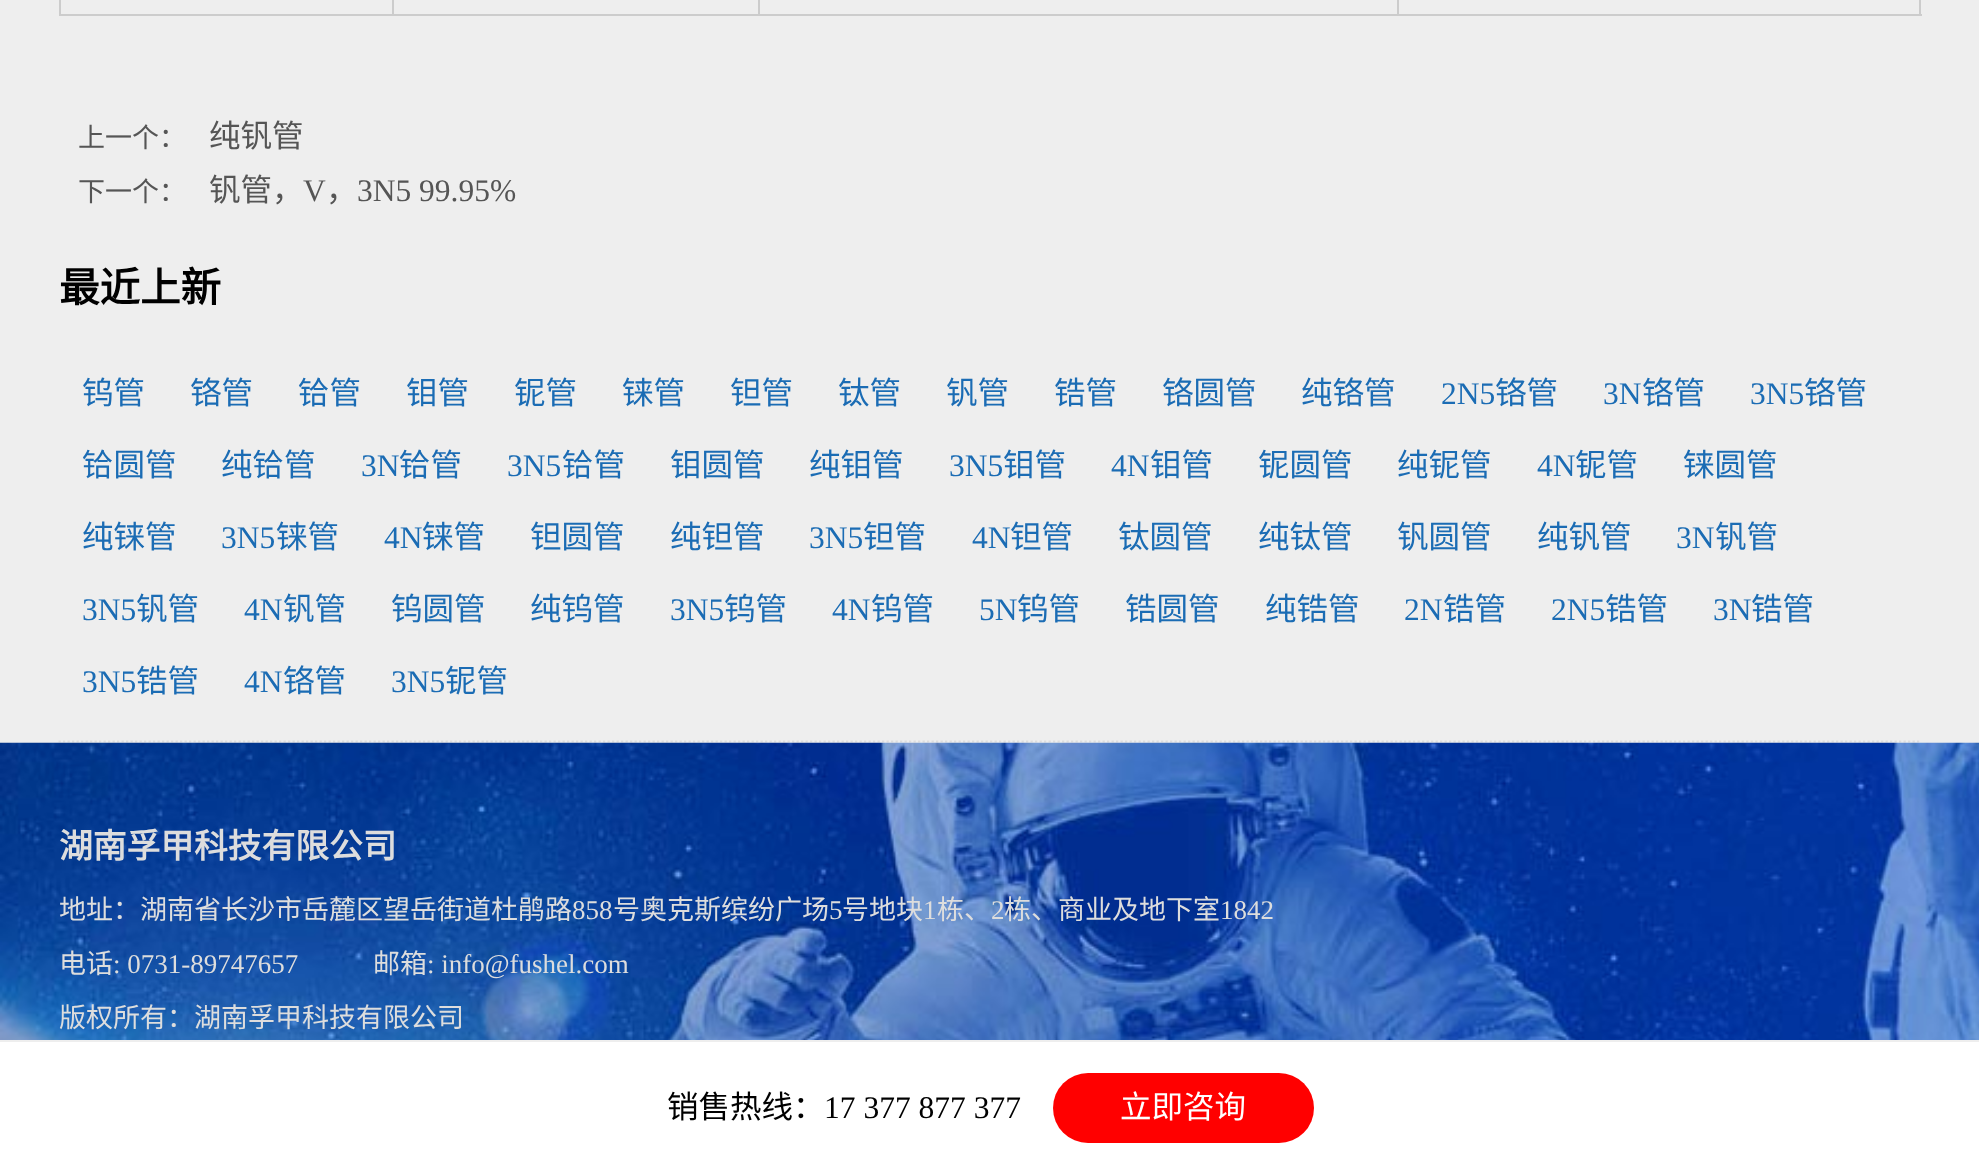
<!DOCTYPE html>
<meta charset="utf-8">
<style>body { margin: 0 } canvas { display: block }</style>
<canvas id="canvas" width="1979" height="1175"></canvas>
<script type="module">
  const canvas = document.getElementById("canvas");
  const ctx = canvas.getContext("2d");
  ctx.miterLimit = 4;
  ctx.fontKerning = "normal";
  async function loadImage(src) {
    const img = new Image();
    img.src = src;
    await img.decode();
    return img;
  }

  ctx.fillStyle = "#eeeeee";
  ctx.fillRect(0, 0, 1979, 1175);
  ctx.fillStyle = "#cccccc";
  ctx.fillRect(1919, 0, 2, 16);
  ctx.fillRect(1397, 14, 525, 2);
  ctx.fillRect(1397, 0, 2, 16);
  ctx.fillRect(758, 14, 642, 2);
  ctx.fillRect(758, 0, 2, 16);
  ctx.fillRect(392, 14, 369, 2);
  ctx.fillRect(392, 0, 2, 16);
  ctx.fillRect(59, 14, 335, 2);
  ctx.fillRect(59, 0, 2, 16);
  ctx.font = "27px Noto Sans CJK SC";
  ctx.fillStyle = "#555555";
  ctx.fillText("上一个：", 78, 147);
  ctx.font = "31.5px Noto Sans CJK SC";
  ctx.fillText("纯钒管", 209, 147);
  ctx.font = "27px Noto Sans CJK SC";
  ctx.fillText("下一个：", 78, 201);
  ctx.font = "31.5px Noto Sans CJK SC";
  ctx.fillText("钒管，", 209, 201);
  ctx.font = "31.5px Liberation Serif";
  ctx.fillText("V", 303, 201);
  ctx.font = "31.5px Noto Sans CJK SC";
  ctx.fillText("，", 326, 201);
  ctx.font = "31.5px Liberation Serif";
  ctx.fillText("3N5 99.95%", 357, 201);
  ctx.font = "bold 40.5px Noto Sans CJK SC";
  ctx.fillStyle = "#000000";
  ctx.fillText("最近上新", 59, 302);
  ctx.beginPath();
  ctx.moveTo(58.5, 741.5);
  ctx.lineTo(1921.5, 741.5);
  ctx.strokeStyle = "#dddddd";
  ctx.lineWidth = 2.2;
  ctx.setLineDash([2.25, 2.25]);
  ctx.stroke();
  ctx.font = "31.5px Noto Sans CJK SC";
  ctx.fillStyle = "#1b6cb4";
  ctx.fillText("钨管", 82, 404);
  ctx.fillText("铬管", 190, 404);
  ctx.fillText("铪管", 298, 404);
  ctx.fillText("钼管", 406, 404);
  ctx.fillText("铌管", 514, 404);
  ctx.fillText("铼管", 622, 404);
  ctx.fillText("钽管", 730, 404);
  ctx.fillText("钛管", 838, 404);
  ctx.fillText("钒管", 946, 404);
  ctx.fillText("锆管", 1054, 404);
  ctx.fillText("铬圆管", 1162, 404);
  ctx.fillText("纯铬管", 1301, 404);
  ctx.font = "31.5px Liberation Serif";
  ctx.fillText("2N5", 1441, 404);
  ctx.font = "31.5px Noto Sans CJK SC";
  ctx.fillText("铬管", 1495, 404);
  ctx.font = "31.5px Liberation Serif";
  ctx.fillText("3N", 1603, 404);
  ctx.font = "31.5px Noto Sans CJK SC";
  ctx.fillText("铬管", 1642, 404);
  ctx.font = "31.5px Liberation Serif";
  ctx.fillText("3N5", 1750, 404);
  ctx.font = "31.5px Noto Sans CJK SC";
  ctx.fillText("铬管", 1804, 404);
  ctx.fillText("铪圆管", 82, 476);
  ctx.fillText("纯铪管", 221, 476);
  ctx.font = "31.5px Liberation Serif";
  ctx.fillText("3N", 361, 476);
  ctx.font = "31.5px Noto Sans CJK SC";
  ctx.fillText("铪管", 399, 476);
  ctx.font = "31.5px Liberation Serif";
  ctx.fillText("3N5", 507, 476);
  ctx.font = "31.5px Noto Sans CJK SC";
  ctx.fillText("铪管", 562, 476);
  ctx.fillText("钼圆管", 670, 476);
  ctx.fillText("纯钼管", 809, 476);
  ctx.font = "31.5px Liberation Serif";
  ctx.fillText("3N5", 949, 476);
  ctx.font = "31.5px Noto Sans CJK SC";
  ctx.fillText("钼管", 1003, 476);
  ctx.font = "31.5px Liberation Serif";
  ctx.fillText("4N", 1111, 476);
  ctx.font = "31.5px Noto Sans CJK SC";
  ctx.fillText("钼管", 1150, 476);
  ctx.fillText("铌圆管", 1258, 476);
  ctx.fillText("纯铌管", 1397, 476);
  ctx.font = "31.5px Liberation Serif";
  ctx.fillText("4N", 1537, 476);
  ctx.font = "31.5px Noto Sans CJK SC";
  ctx.fillText("铌管", 1575, 476);
  ctx.fillText("铼圆管", 1683, 476);
  ctx.fillText("纯铼管", 82, 548);
  ctx.font = "31.5px Liberation Serif";
  ctx.fillText("3N5", 221, 548);
  ctx.font = "31.5px Noto Sans CJK SC";
  ctx.fillText("铼管", 276, 548);
  ctx.font = "31.5px Liberation Serif";
  ctx.fillText("4N", 384, 548);
  ctx.font = "31.5px Noto Sans CJK SC";
  ctx.fillText("铼管", 422, 548);
  ctx.fillText("钽圆管", 530, 548);
  ctx.fillText("纯钽管", 670, 548);
  ctx.font = "31.5px Liberation Serif";
  ctx.fillText("3N5", 809, 548);
  ctx.font = "31.5px Noto Sans CJK SC";
  ctx.fillText("钽管", 863, 548);
  ctx.font = "31.5px Liberation Serif";
  ctx.fillText("4N", 972, 548);
  ctx.font = "31.5px Noto Sans CJK SC";
  ctx.fillText("钽管", 1010, 548);
  ctx.fillText("钛圆管", 1118, 548);
  ctx.fillText("纯钛管", 1258, 548);
  ctx.fillText("钒圆管", 1397, 548);
  ctx.fillText("纯钒管", 1537, 548);
  ctx.font = "31.5px Liberation Serif";
  ctx.fillText("3N", 1676, 548);
  ctx.font = "31.5px Noto Sans CJK SC";
  ctx.fillText("钒管", 1715, 548);
  ctx.font = "31.5px Liberation Serif";
  ctx.fillText("3N5", 82, 620);
  ctx.font = "31.5px Noto Sans CJK SC";
  ctx.fillText("钒管", 136, 620);
  ctx.font = "31.5px Liberation Serif";
  ctx.fillText("4N", 244, 620);
  ctx.font = "31.5px Noto Sans CJK SC";
  ctx.fillText("钒管", 283, 620);
  ctx.fillText("钨圆管", 391, 620);
  ctx.fillText("纯钨管", 530, 620);
  ctx.font = "31.5px Liberation Serif";
  ctx.fillText("3N5", 670, 620);
  ctx.font = "31.5px Noto Sans CJK SC";
  ctx.fillText("钨管", 724, 620);
  ctx.font = "31.5px Liberation Serif";
  ctx.fillText("4N", 832, 620);
  ctx.font = "31.5px Noto Sans CJK SC";
  ctx.fillText("钨管", 871, 620);
  ctx.font = "31.5px Liberation Serif";
  ctx.fillText("5N", 979, 620);
  ctx.font = "31.5px Noto Sans CJK SC";
  ctx.fillText("钨管", 1017, 620);
  ctx.fillText("锆圆管", 1125, 620);
  ctx.fillText("纯锆管", 1265, 620);
  ctx.font = "31.5px Liberation Serif";
  ctx.fillText("2N", 1404, 620);
  ctx.font = "31.5px Noto Sans CJK SC";
  ctx.fillText("锆管", 1443, 620);
  ctx.font = "31.5px Liberation Serif";
  ctx.fillText("2N5", 1551, 620);
  ctx.font = "31.5px Noto Sans CJK SC";
  ctx.fillText("锆管", 1605, 620);
  ctx.font = "31.5px Liberation Serif";
  ctx.fillText("3N", 1713, 620);
  ctx.font = "31.5px Noto Sans CJK SC";
  ctx.fillText("锆管", 1751, 620);
  ctx.font = "31.5px Liberation Serif";
  ctx.fillText("3N5", 82, 692);
  ctx.font = "31.5px Noto Sans CJK SC";
  ctx.fillText("锆管", 136, 692);
  ctx.font = "31.5px Liberation Serif";
  ctx.fillText("4N", 244, 692);
  ctx.font = "31.5px Noto Sans CJK SC";
  ctx.fillText("铬管", 283, 692);
  ctx.font = "31.5px Liberation Serif";
  ctx.fillText("3N5", 391, 692);
  ctx.font = "31.5px Noto Sans CJK SC";
  ctx.fillText("铌管", 445, 692);
  ctx.drawImage(await loadImage("img1.png"), 0, 742, 1979, 298);
  ctx.font = "bold 33.75px Noto Sans CJK SC";
  ctx.fillStyle = "#dddddd";
  ctx.fillText("湖南孚甲科技有限公司", 59, 858);
  ctx.font = "27px Noto Sans CJK SC";
  ctx.fillText("地址：湖南省长沙市岳麓区望岳街道杜鹃路", 59, 919);
  ctx.font = "27px Liberation Serif";
  ctx.fillText("858", 572, 919);
  ctx.font = "27px Noto Sans CJK SC";
  ctx.fillText("号奥克斯缤纷广场", 613, 919);
  ctx.font = "27px Liberation Serif";
  ctx.fillText("5", 829, 919);
  ctx.font = "27px Noto Sans CJK SC";
  ctx.fillText("号地块", 842, 919);
  ctx.font = "27px Liberation Serif";
  ctx.fillText("1", 923, 919);
  ctx.font = "27px Noto Sans CJK SC";
  ctx.fillText("栋、", 937, 919);
  ctx.font = "27px Liberation Serif";
  ctx.fillText("2", 991, 919);
  ctx.font = "27px Noto Sans CJK SC";
  ctx.fillText("栋、商业及地下室", 1004, 919);
  ctx.font = "27px Liberation Serif";
  ctx.fillText("1842", 1220, 919);
  ctx.font = "27px Noto Sans CJK SC";
  ctx.fillText("电话", 59, 973);
  ctx.font = "27px Liberation Serif";
  ctx.fillText(": 0731-89747657", 113, 973);
  ctx.font = "27px Noto Sans CJK SC";
  ctx.fillText("邮箱", 373, 973);
  ctx.font = "27px Liberation Serif";
  ctx.fillText(": info@fushel.com", 427, 973);
  ctx.font = "27px Noto Sans CJK SC";
  ctx.fillText("版权所有：湖南孚甲科技有限公司", 59, 1027);
  ctx.fillStyle = "#ffffff";
  ctx.fillRect(0, 1042, 1979, 133);
  ctx.font = "31.5px Noto Sans CJK SC";
  ctx.fillStyle = "#000000";
  ctx.fillText("销售热线：", 667, 1118);
  ctx.font = "31.5px Liberation Serif";
  ctx.fillText("17 377 877 377", 824, 1118);
  ctx.fillStyle = "#ff0000";
  ctx.beginPath();
  ctx.roundRect(1053, 1073, 261, 70, 35);
  ctx.fill();
  ctx.font = "31.5px Noto Sans CJK SC";
  ctx.fillStyle = "#ffffff";
  ctx.fillText("立即咨询", 1120, 1118);
</script>
